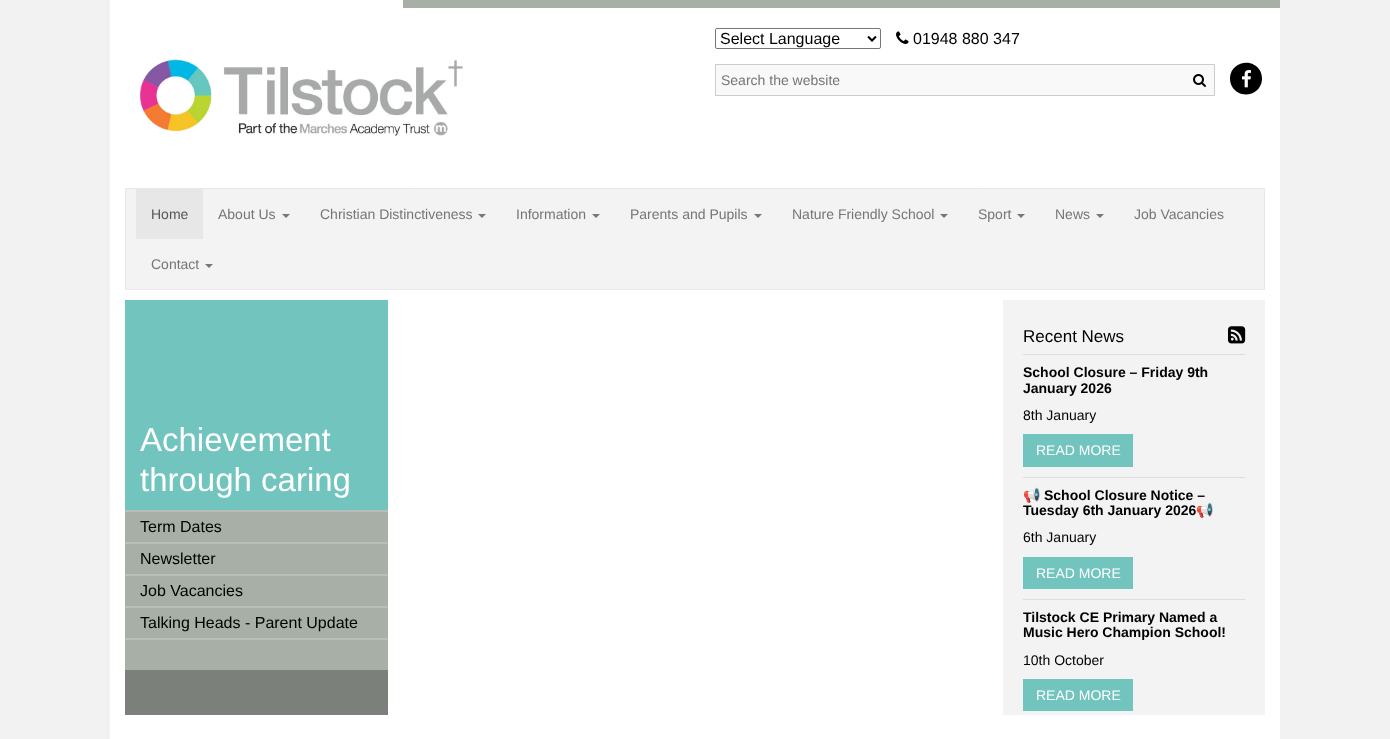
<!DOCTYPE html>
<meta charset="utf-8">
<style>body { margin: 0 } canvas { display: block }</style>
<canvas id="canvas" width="1390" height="739"></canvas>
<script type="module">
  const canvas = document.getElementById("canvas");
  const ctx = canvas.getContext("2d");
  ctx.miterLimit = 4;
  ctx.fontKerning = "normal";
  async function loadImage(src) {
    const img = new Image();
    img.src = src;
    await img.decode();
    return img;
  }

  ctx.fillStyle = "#f2f2f2";
  ctx.fillRect(0, 0, 1390, 739);
  ctx.fillStyle = "#ffffff";
  ctx.fillRect(110, 0, 1170, 739);
  ctx.drawImage(await loadImage("img1.png"), 137, 57, 326, 79);
  ctx.fillStyle = "#a7afa6";
  ctx.fillRect(403, 0, 877, 8);
  ctx.beginPath();
  ctx.roundRect(715.5, 28.5, 165, 20, 1.5);
  ctx.strokeStyle = "#767676";
  ctx.stroke();
  ctx.beginPath();
  ctx.moveTo(868, 36.5);
  ctx.lineTo(872, 40.5);
  ctx.lineTo(876, 36.5);
  ctx.strokeStyle = "#000000";
  ctx.lineWidth = 2;
  ctx.stroke();
  ctx.font = "16px Liberation Sans";
  ctx.fillStyle = "#000000";
  ctx.fillText("Select Language", 720, 44);
  ctx.drawImage(await loadImage("img2.png"), 896, 31, 13, 13);
  ctx.fillText("01948 880 347", 913, 44);
  ctx.fillStyle = "#f9f9f9";
  ctx.beginPath();
  ctx.rect(715.5, 64.5, 499, 31);
  ctx.fill();
  ctx.strokeStyle = "#cccccc";
  ctx.lineWidth = 1;
  ctx.stroke();
  ctx.font = "14px Liberation Sans";
  ctx.fillStyle = "#757575";
  ctx.fillText("Search the website", 721, 85);
  ctx.drawImage(await loadImage("img3.png"), 1193, 74, 13, 13);
  ctx.fillStyle = "#000000";
  ctx.beginPath();
  ctx.moveTo(1232, 86.5);
  ctx.bezierCurveTo(1230.5, 84, 1230, 81, 1230, 77.5);
  ctx.bezierCurveTo(1231, 62, 1252, 57, 1260, 70.5);
  ctx.bezierCurveTo(1261.5, 73.5, 1262, 76.5, 1262, 79.5);
  ctx.bezierCurveTo(1261, 95.5, 1240, 100, 1232, 86.5);
  ctx.closePath();
  ctx.fill();
  ctx.drawImage(await loadImage("img4.png"), 1242, 70, 9, 18);
  ctx.fillStyle = "#f2f3f2";
  ctx.beginPath();
  ctx.rect(125.5, 188.5, 1139, 101);
  ctx.fill();
  ctx.strokeStyle = "#e7e7e7";
  ctx.stroke();
  ctx.fillStyle = "#e7e7e7";
  ctx.fillRect(136, 189, 67, 50);
  ctx.fillStyle = "#555555";
  ctx.fillText("Home", 151, 219);
  ctx.fillStyle = "#757575";
  ctx.fillText("About Us", 218, 219);
  ctx.fillStyle = "#777777";
  ctx.beginPath();
  ctx.moveTo(282, 214);
  ctx.lineTo(290, 214);
  ctx.lineTo(286, 218);
  ctx.closePath();
  ctx.fill();
  ctx.fillStyle = "#757575";
  ctx.fillText("Christian Distinctiveness", 320, 219);
  ctx.fillStyle = "#777777";
  ctx.beginPath();
  ctx.moveTo(478, 214);
  ctx.lineTo(486, 214);
  ctx.lineTo(482, 218);
  ctx.closePath();
  ctx.fill();
  ctx.fillStyle = "#757575";
  ctx.fillText("Information", 516, 219);
  ctx.fillStyle = "#777777";
  ctx.beginPath();
  ctx.moveTo(592, 214);
  ctx.lineTo(600, 214);
  ctx.lineTo(596, 218);
  ctx.closePath();
  ctx.fill();
  ctx.fillStyle = "#757575";
  ctx.fillText("Parents and Pupils", 630, 219);
  ctx.fillStyle = "#777777";
  ctx.beginPath();
  ctx.moveTo(754, 214);
  ctx.lineTo(762, 214);
  ctx.lineTo(758, 218);
  ctx.closePath();
  ctx.fill();
  ctx.fillStyle = "#757575";
  ctx.fillText("Nature Friendly School", 792, 219);
  ctx.fillStyle = "#777777";
  ctx.beginPath();
  ctx.moveTo(940, 214);
  ctx.lineTo(948, 214);
  ctx.lineTo(944, 218);
  ctx.closePath();
  ctx.fill();
  ctx.fillStyle = "#757575";
  ctx.fillText("Sport", 978, 219);
  ctx.fillStyle = "#777777";
  ctx.beginPath();
  ctx.moveTo(1017, 214);
  ctx.lineTo(1025, 214);
  ctx.lineTo(1021, 218);
  ctx.closePath();
  ctx.fill();
  ctx.fillStyle = "#757575";
  ctx.fillText("News", 1055, 219);
  ctx.fillStyle = "#777777";
  ctx.beginPath();
  ctx.moveTo(1096, 214);
  ctx.lineTo(1104, 214);
  ctx.lineTo(1100, 218);
  ctx.closePath();
  ctx.fill();
  ctx.fillStyle = "#757575";
  ctx.fillText("Job Vacancies", 1134, 219);
  ctx.fillText("Contact", 151, 269);
  ctx.fillStyle = "#777777";
  ctx.beginPath();
  ctx.moveTo(205, 264);
  ctx.lineTo(213, 264);
  ctx.lineTo(209, 268);
  ctx.closePath();
  ctx.fill();
  ctx.fillStyle = "#7b817a";
  ctx.fillRect(125, 670, 263, 45);
  ctx.fillStyle = "#72c4bf";
  ctx.fillRect(125, 300, 263, 210);
  ctx.font = "33px Liberation Sans";
  ctx.fillStyle = "#ffffff";
  ctx.fillText("Achievement", 140, 451);
  ctx.fillText("through caring", 140, 491);
  ctx.fillStyle = "#a7afa6";
  ctx.fillRect(125, 512, 263, 158);
  ctx.fillStyle = "#b9bfb8";
  ctx.fillRect(125, 510, 263, 2);
  ctx.fillRect(125, 542, 263, 2);
  ctx.font = "16px Liberation Sans";
  ctx.fillStyle = "#000000";
  ctx.fillText("Term Dates", 140, 532);
  ctx.fillStyle = "#b9bfb8";
  ctx.fillRect(125, 574, 263, 2);
  ctx.fillStyle = "#000000";
  ctx.fillText("Newsletter", 140, 564);
  ctx.fillStyle = "#b9bfb8";
  ctx.fillRect(125, 606, 263, 2);
  ctx.fillStyle = "#000000";
  ctx.fillText("Job Vacancies", 140, 596);
  ctx.fillStyle = "#b9bfb8";
  ctx.fillRect(125, 638, 263, 2);
  ctx.fillStyle = "#000000";
  ctx.fillText("Talking Heads - Parent Update", 140, 628);
  ctx.fillStyle = "#f2f3f2";
  ctx.fillRect(1003, 300, 262, 415);
  ctx.fillStyle = "#dddddd";
  ctx.fillRect(1023, 354, 222, 1);
  ctx.font = "17px Liberation Sans";
  ctx.fillStyle = "#000000";
  ctx.fillText("Recent News", 1023, 342);
  ctx.drawImage(await loadImage("img5.png"), 1228, 326, 18, 18);
  ctx.fillStyle = "#dddddd";
  ctx.fillRect(1023, 477, 222, 1);
  ctx.font = "bold 14px Liberation Sans";
  ctx.fillStyle = "#000000";
  ctx.fillText("School Closure – Friday 9th", 1023, 377);
  ctx.fillText("January 2026", 1023, 393);
  ctx.font = "14px Liberation Sans";
  ctx.fillText("8th January", 1023, 420);
  ctx.fillStyle = "#72c4bf";
  ctx.fillRect(1023, 434, 110, 33);
  ctx.fillStyle = "#ffffff";
  ctx.fillText("READ MORE", 1036, 455);
  ctx.fillStyle = "#dddddd";
  ctx.fillRect(1023, 599, 222, 1);
  ctx.font = "bold 14px Noto Color Emoji";
  ctx.fillStyle = "#000000";
  ctx.fillText("📢", 1023, 500);
  ctx.font = "bold 14px Liberation Sans";
  ctx.fillText("School Closure Notice –", 1044, 500);
  ctx.fillText("Tuesday 6th January 2026", 1023, 515);
  ctx.font = "bold 14px Noto Color Emoji";
  ctx.fillText("📢", 1196, 515);
  ctx.font = "14px Liberation Sans";
  ctx.fillText("6th January", 1023, 542);
  ctx.fillStyle = "#72c4bf";
  ctx.fillRect(1023, 557, 110, 32);
  ctx.fillStyle = "#ffffff";
  ctx.fillText("READ MORE", 1036, 578);
  ctx.font = "bold 14px Liberation Sans";
  ctx.fillStyle = "#000000";
  ctx.fillText("Tilstock CE Primary Named a", 1023, 622);
  ctx.fillText("Music Hero Champion School!", 1023, 637);
  ctx.font = "14px Liberation Sans";
  ctx.fillText("10th October", 1023, 665);
  ctx.fillStyle = "#72c4bf";
  ctx.fillRect(1023, 679, 110, 32);
  ctx.fillStyle = "#ffffff";
  ctx.fillText("READ MORE", 1036, 700);
</script>
